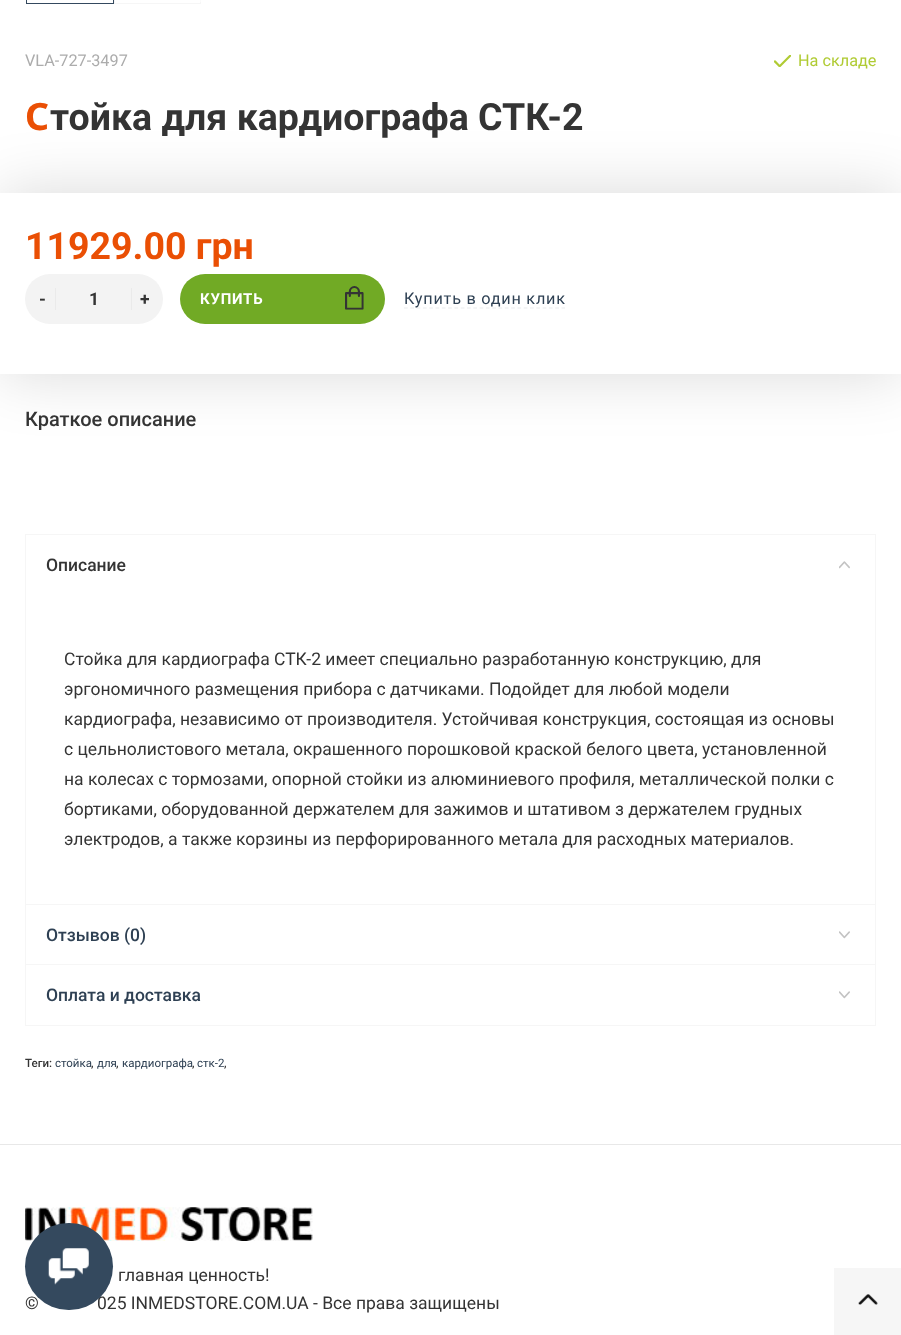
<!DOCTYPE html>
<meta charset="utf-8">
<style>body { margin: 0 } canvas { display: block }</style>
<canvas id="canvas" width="901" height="1335"></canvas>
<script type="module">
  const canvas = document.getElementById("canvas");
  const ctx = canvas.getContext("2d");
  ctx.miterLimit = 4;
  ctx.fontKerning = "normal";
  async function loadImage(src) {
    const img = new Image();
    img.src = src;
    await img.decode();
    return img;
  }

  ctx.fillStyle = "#ffffff";
  ctx.fillRect(0, 0, 901, 1335);
  ctx.strokeStyle = "#34495e";
  ctx.strokeRect(26.5, -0.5, 87, 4);
  ctx.strokeStyle = "#f6f6f6";
  ctx.strokeRect(114.5, -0.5, 86, 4);
  ctx.fillStyle = "#fbfbfb";
  ctx.fillRect(200, 0, 1, 2);
  ctx.font = "16.25px Roboto";
  ctx.fillStyle = "#acacac";
  ctx.fillText("VLA-727-3497", 25, 66);
  ctx.save();
  ctx.beginPath();
  ctx.moveTo(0, 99);
  ctx.lineTo(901, 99);
  ctx.lineTo(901, 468);
  ctx.lineTo(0, 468);
  ctx.closePath();
  ctx.moveTo(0, 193);
  ctx.lineTo(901, 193);
  ctx.lineTo(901, 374);
  ctx.lineTo(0, 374);
  ctx.closePath();
  ctx.clip("evenodd");
  ctx.fillStyle = "rgba(0, 0, 0, 0.15)";
  ctx.filter = "blur(31px)";
  ctx.beginPath();
  ctx.rect(0, 193, 901, 181);
  ctx.fill();
  ctx.filter = "none";
  ctx.restore();
  ctx.font = "bold 37.5px Noto Sans";
  ctx.fillStyle = "#ea4f04";
  ctx.fillText("С", 25, 130);
  ctx.font = "bold 37.5px Roboto";
  ctx.fillStyle = "#343434";
  ctx.fillText("тойка для кардиографа СТК-2", 50, 130);
  ctx.drawImage(await loadImage("img1.png"), 774, 55, 17, 12);
  ctx.font = "16.25px Roboto";
  ctx.fillStyle = "#b0cb34";
  ctx.fillText("На складе", 798, 66);
  ctx.font = "bold 37.5px Roboto";
  ctx.fillStyle = "#ea4f04";
  ctx.fillText("11929.00 грн", 25, 259);
  ctx.fillStyle = "#f3f3f3";
  ctx.beginPath();
  ctx.roundRect(25, 274, 138, 50, 25);
  ctx.fill();
  ctx.fillStyle = "#eaeaea";
  ctx.fillRect(55, 288, 1, 22);
  ctx.font = "bold 17.5px Roboto";
  ctx.fillStyle = "#343434";
  ctx.fillText("-", 39, 305);
  ctx.fillText("1", 89, 305);
  ctx.fillStyle = "#eaeaea";
  ctx.fillRect(131, 288, 1, 22);
  ctx.fillStyle = "#343434";
  ctx.fillText("+", 140, 305);
  ctx.fillStyle = "#71aa25";
  ctx.beginPath();
  ctx.roundRect(180, 274, 205, 50, 25);
  ctx.fill();
  ctx.letterSpacing = "0.75px";
  ctx.font = "bold 15px Roboto";
  ctx.fillStyle = "#ffffff";
  ctx.fillText("КУПИТЬ", 200, 304);
  ctx.drawImage(await loadImage("img2.png"), 345, 286, 19, 24);
  ctx.beginPath();
  ctx.moveTo(404, 308);
  ctx.lineTo(565, 308);
  ctx.strokeStyle = "#eaecee";
  ctx.lineWidth = 1.2;
  ctx.setLineDash([3.75, 2.55]);
  ctx.stroke();
  ctx.font = "16.25px Roboto";
  ctx.fillStyle = "#2e4053";
  ctx.fillText("Купить в один клик", 404, 304);
  ctx.letterSpacing = "0px";
  ctx.font = "500 20px Roboto";
  ctx.fillStyle = "#343434";
  ctx.fillText("Краткое описание", 25, 426);
  ctx.strokeStyle = "#f6f6f6";
  ctx.lineWidth = 1;
  ctx.setLineDash([]);
  ctx.strokeRect(25.5, 534.5, 850, 491);
  ctx.font = "500 17.5px Roboto";
  ctx.fillText("Описание", 46, 571);
  ctx.drawImage(await loadImage("img3.png"), 839, 561, 11, 8);
  ctx.font = "17.5px Roboto";
  ctx.fillText("Стойка для кардиографа СТК-2 имеет специально разработанную конструкцию, для", 64, 665);
  ctx.fillText("эргономичного размещения прибора с датчиками. Подойдет для любой модели", 64, 695);
  ctx.fillText("кардиографа, независимо от производителя. Устойчивая конструкция, состоящая из основы", 64, 725);
  ctx.fillText("с цельнолистового метала, окрашенного порошковой краской белого цвета, установленной", 64, 755);
  ctx.fillText("на колесах с тормозами, опорной стойки из алюминиевого профиля, металлической полки с", 64, 785);
  ctx.fillText("бортиками, оборудованной держателем для зажимов и штативом з держателем грудных", 64, 815);
  ctx.fillText("электродов, а также корзины из перфорированного метала для расходных материалов.", 64, 845);
  ctx.fillStyle = "#f6f6f6";
  ctx.fillRect(26, 904, 849, 1);
  ctx.font = "500 17.5px Roboto";
  ctx.fillStyle = "#2e4053";
  ctx.fillText("Отзывов (0)", 46, 941);
  ctx.drawImage(await loadImage("img4.png"), 839, 931, 11, 8);
  ctx.fillStyle = "#f6f6f6";
  ctx.fillRect(26, 964, 849, 1);
  ctx.fillStyle = "#2e4053";
  ctx.fillText("Оплата и доставка", 46, 1001);
  ctx.drawImage(await loadImage("img4.png"), 839, 991, 11, 8);
  ctx.font = "500 11.5px Roboto";
  ctx.fillStyle = "#343434";
  ctx.fillText("Теги:", 25, 1067);
  ctx.font = "11.5px Roboto";
  ctx.fillStyle = "#2e4053";
  ctx.fillText("стойка", 55, 1067);
  ctx.font = "500 11.5px Roboto";
  ctx.fillStyle = "#343434";
  ctx.fillText(",", 91, 1067);
  ctx.font = "11.5px Roboto";
  ctx.fillStyle = "#2e4053";
  ctx.fillText("для", 97, 1067);
  ctx.font = "500 11.5px Roboto";
  ctx.fillStyle = "#343434";
  ctx.fillText(",", 116, 1067);
  ctx.font = "11.5px Roboto";
  ctx.fillStyle = "#2e4053";
  ctx.fillText("кардиографа", 122, 1067);
  ctx.font = "500 11.5px Roboto";
  ctx.fillStyle = "#343434";
  ctx.fillText(",", 192, 1067);
  ctx.font = "11.5px Roboto";
  ctx.fillStyle = "#2e4053";
  ctx.fillText("стк-2", 197, 1067);
  ctx.font = "500 11.5px Roboto";
  ctx.fillStyle = "#343434";
  ctx.fillText(",", 224, 1067);
  ctx.drawImage(await loadImage("img6.png"), 25, 1207, 288, 34);
  ctx.font = "17.5px Roboto";
  ctx.fillText("©", 25, 1309);
  ctx.fillText("025 INMEDSTORE.COM.UA - Все права защищены", 97, 1309);
  ctx.fillStyle = "#34495e";
  ctx.beginPath();
  ctx.roundRect(25, 1223, 88, 87, 43.5);
  ctx.fill();
  ctx.drawImage(await loadImage("img5.png"), 48, 1248, 41, 37);
  ctx.fillStyle = "#e8e8e8";
  ctx.fillRect(0, 1144, 901, 1);
  ctx.fillStyle = "#343434";
  ctx.fillText("главная ценность!", 118, 1281);
  ctx.fillStyle = "#f6f6f6";
  ctx.fillRect(834, 1268, 67, 67);
  ctx.drawImage(await loadImage("img7.png"), 858, 1294, 20, 11);
</script>
